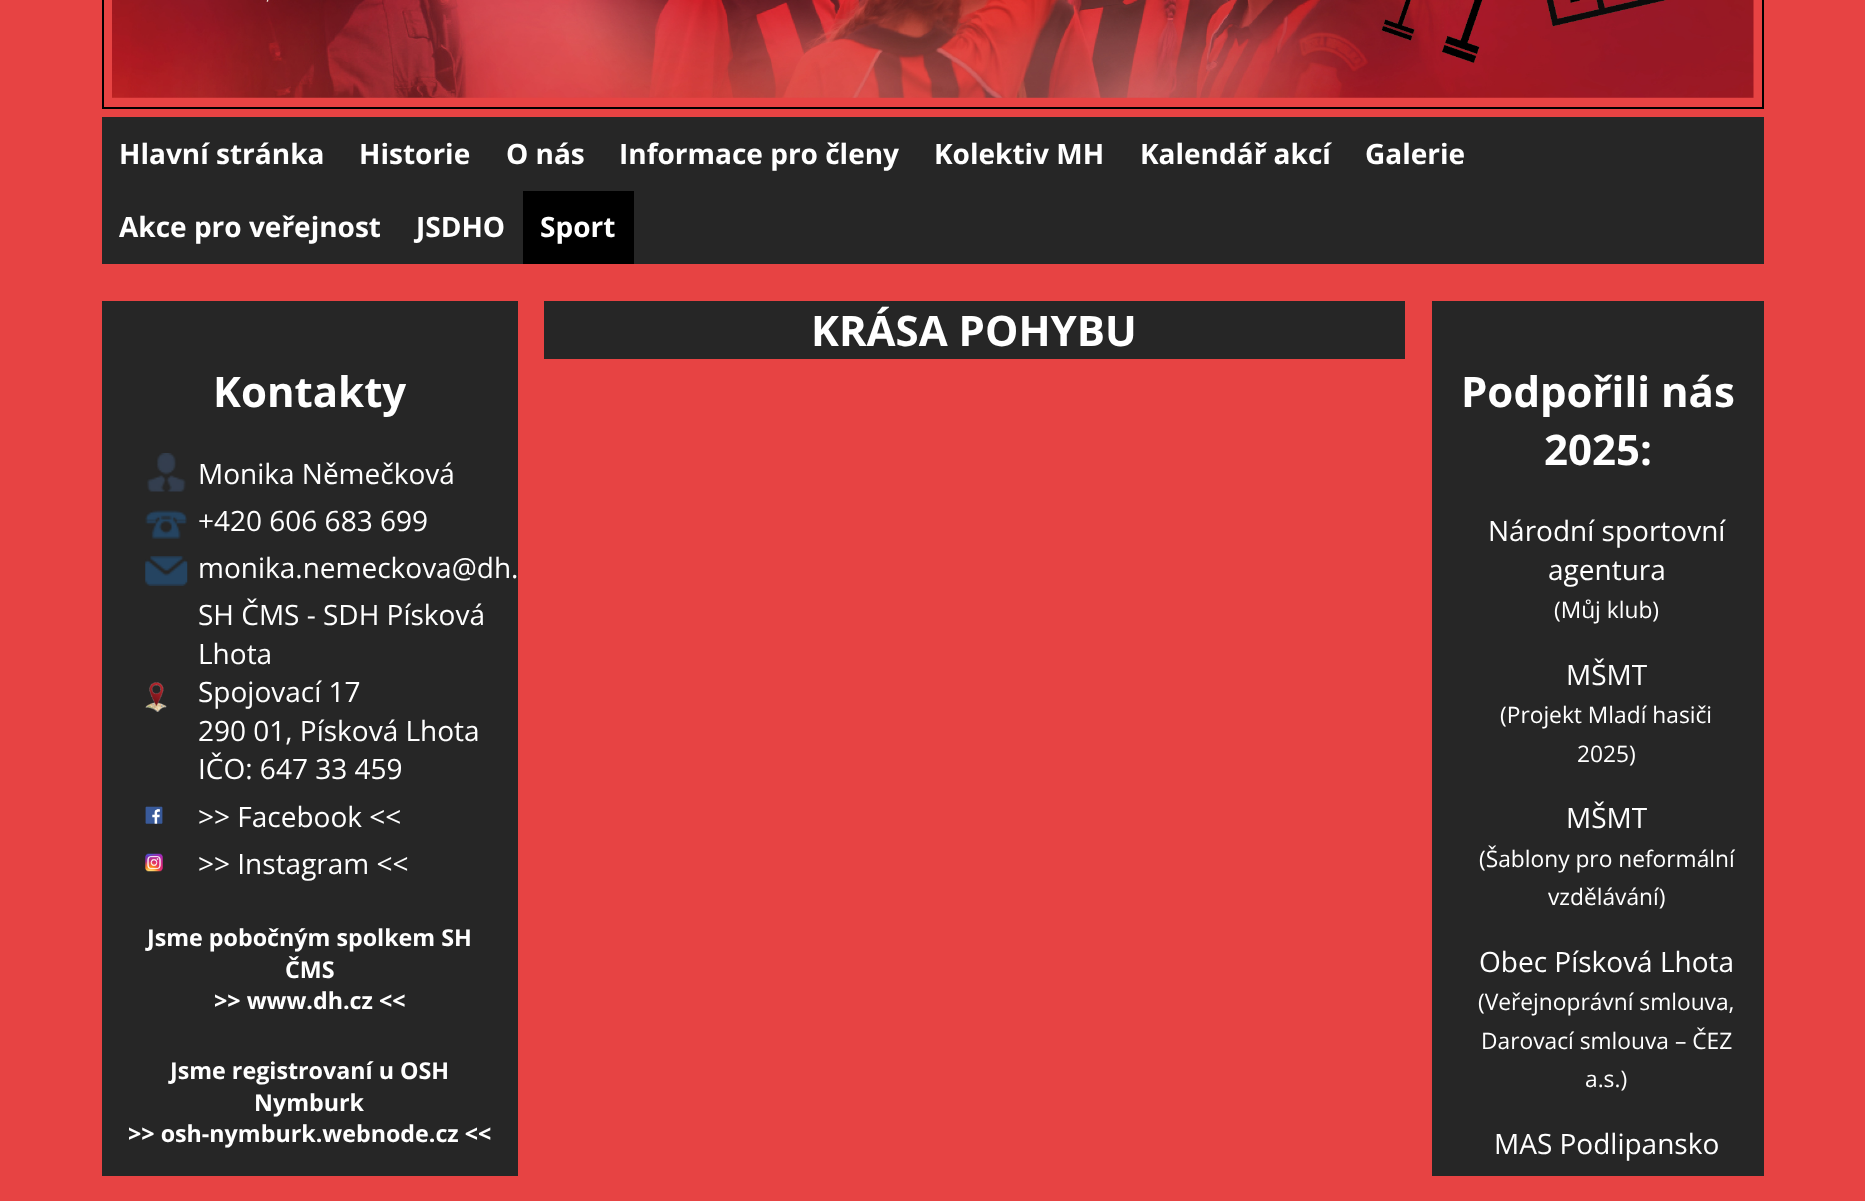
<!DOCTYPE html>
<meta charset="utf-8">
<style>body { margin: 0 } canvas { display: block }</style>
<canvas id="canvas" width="1865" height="1201"></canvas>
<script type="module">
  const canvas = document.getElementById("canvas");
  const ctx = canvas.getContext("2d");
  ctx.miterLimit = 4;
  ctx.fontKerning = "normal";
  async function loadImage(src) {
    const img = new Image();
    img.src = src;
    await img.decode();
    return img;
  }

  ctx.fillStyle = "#e74343";
  ctx.fillRect(0, 0, 1865, 1201);
  ctx.strokeStyle = "#000000";
  ctx.lineWidth = 2;
  ctx.strokeRect(103, -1, 1660, 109);
  ctx.drawImage(await loadImage("img1.png"), 112, 0, 1642, 98);
  ctx.fillStyle = "#262626";
  ctx.fillRect(102, 117, 1662, 147);
  ctx.font = "bold 28px Open Sans";
  ctx.fillStyle = "#ffffff";
  ctx.fillText("Hlavní stránka", 119, 164);
  ctx.fillText("Historie", 359, 164);
  ctx.fillText("O nás", 506, 164);
  ctx.fillText("Informace pro členy", 619, 164);
  ctx.fillText("Kolektiv MH", 934, 164);
  ctx.fillText("Kalendář akcí", 1140, 164);
  ctx.fillText("Galerie", 1365, 164);
  ctx.fillText("Akce pro veřejnost", 119, 237);
  ctx.fillText("JSDHO", 416, 237);
  ctx.fillStyle = "#000000";
  ctx.fillRect(523, 191, 111, 73);
  ctx.fillStyle = "#ffffff";
  ctx.fillText("Sport", 540, 237);
  ctx.fillStyle = "#262626";
  ctx.fillRect(544, 301, 861, 58);
  ctx.font = "bold 42px Open Sans";
  ctx.fillStyle = "#ffffff";
  ctx.fillText("KRÁSA POHYBU", 811, 346);
  ctx.fillStyle = "#262626";
  ctx.fillRect(102, 301, 416, 875);
  ctx.fillStyle = "#ffffff";
  ctx.fillText("Kontakty", 213, 407);
  ctx.drawImage(await loadImage("img2.png"), 147, 453, 39, 39);
  ctx.font = "28px Open Sans";
  ctx.fillText("Monika Němečková", 198, 484);
  ctx.drawImage(await loadImage("img3.png"), 145, 510, 42, 29);
  ctx.fillText("+420 606 683 699", 198, 531);
  ctx.drawImage(await loadImage("img4.png"), 145, 556, 43, 30);
  ctx.fillText("monika.nemeckova@dh.", 198, 578);
  ctx.drawImage(await loadImage("img5.png"), 145, 682, 22, 30);
  ctx.fillText("SH ČMS - SDH Písková", 198, 625);
  ctx.fillText("Lhota", 198, 664);
  ctx.fillText("Spojovací 17", 198, 702);
  ctx.fillText("290 01, Písková Lhota", 198, 741);
  ctx.fillText("IČO: 647 33 459", 198, 779);
  ctx.drawImage(await loadImage("img6.png"), 145, 806, 18, 18);
  ctx.fillText(">> Facebook <<", 198, 827);
  ctx.drawImage(await loadImage("img7.png"), 145, 853, 18, 19);
  ctx.fillText(">> Instagram <<", 198, 874);
  ctx.font = "bold 23.25px Open Sans";
  ctx.fillText("Jsme pobočným spolkem SH", 147, 946);
  ctx.fillText("ČMS", 285, 978);
  ctx.fillText(">> www.dh.cz <<", 214, 1009);
  ctx.fillText("Jsme registrovaní u OSH", 170, 1079);
  ctx.fillText("Nymburk", 254, 1111);
  ctx.fillText(">> osh-nymburk.webnode.cz <<", 128, 1142);
  ctx.fillStyle = "#262626";
  ctx.fillRect(1432, 301, 332, 875);
  ctx.font = "bold 42px Open Sans";
  ctx.fillStyle = "#ffffff";
  ctx.fillText("Podpořili nás", 1461, 407);
  ctx.fillText("2025:", 1544, 465);
  ctx.font = "28px Open Sans";
  ctx.fillText("Národní sportovní", 1488, 541);
  ctx.fillText("agentura", 1548, 580);
  ctx.font = "22.75px Open Sans";
  ctx.fillText("(Můj klub)", 1554, 618);
  ctx.font = "28px Open Sans";
  ctx.fillText("MŠMT", 1566, 685);
  ctx.font = "22.75px Open Sans";
  ctx.fillText("(Projekt Mladí hasiči", 1500, 723);
  ctx.fillText("2025)", 1577, 762);
  ctx.font = "28px Open Sans";
  ctx.fillText("MŠMT", 1566, 828);
  ctx.font = "22.75px Open Sans";
  ctx.fillText("(Šablony pro neformální", 1479, 867);
  ctx.fillText("vzdělávání)", 1548, 905);
  ctx.font = "28px Open Sans";
  ctx.fillText("Obec Písková Lhota", 1479, 972);
  ctx.font = "22.75px Open Sans";
  ctx.fillText("(Veřejnoprávní smlouva,", 1478, 1010);
  ctx.fillText("Darovací smlouva – ČEZ", 1481, 1049);
  ctx.fillText("a.s.)", 1585, 1087);
  ctx.font = "28px Open Sans";
  ctx.fillText("MAS Podlipansko", 1494, 1154);
</script>
